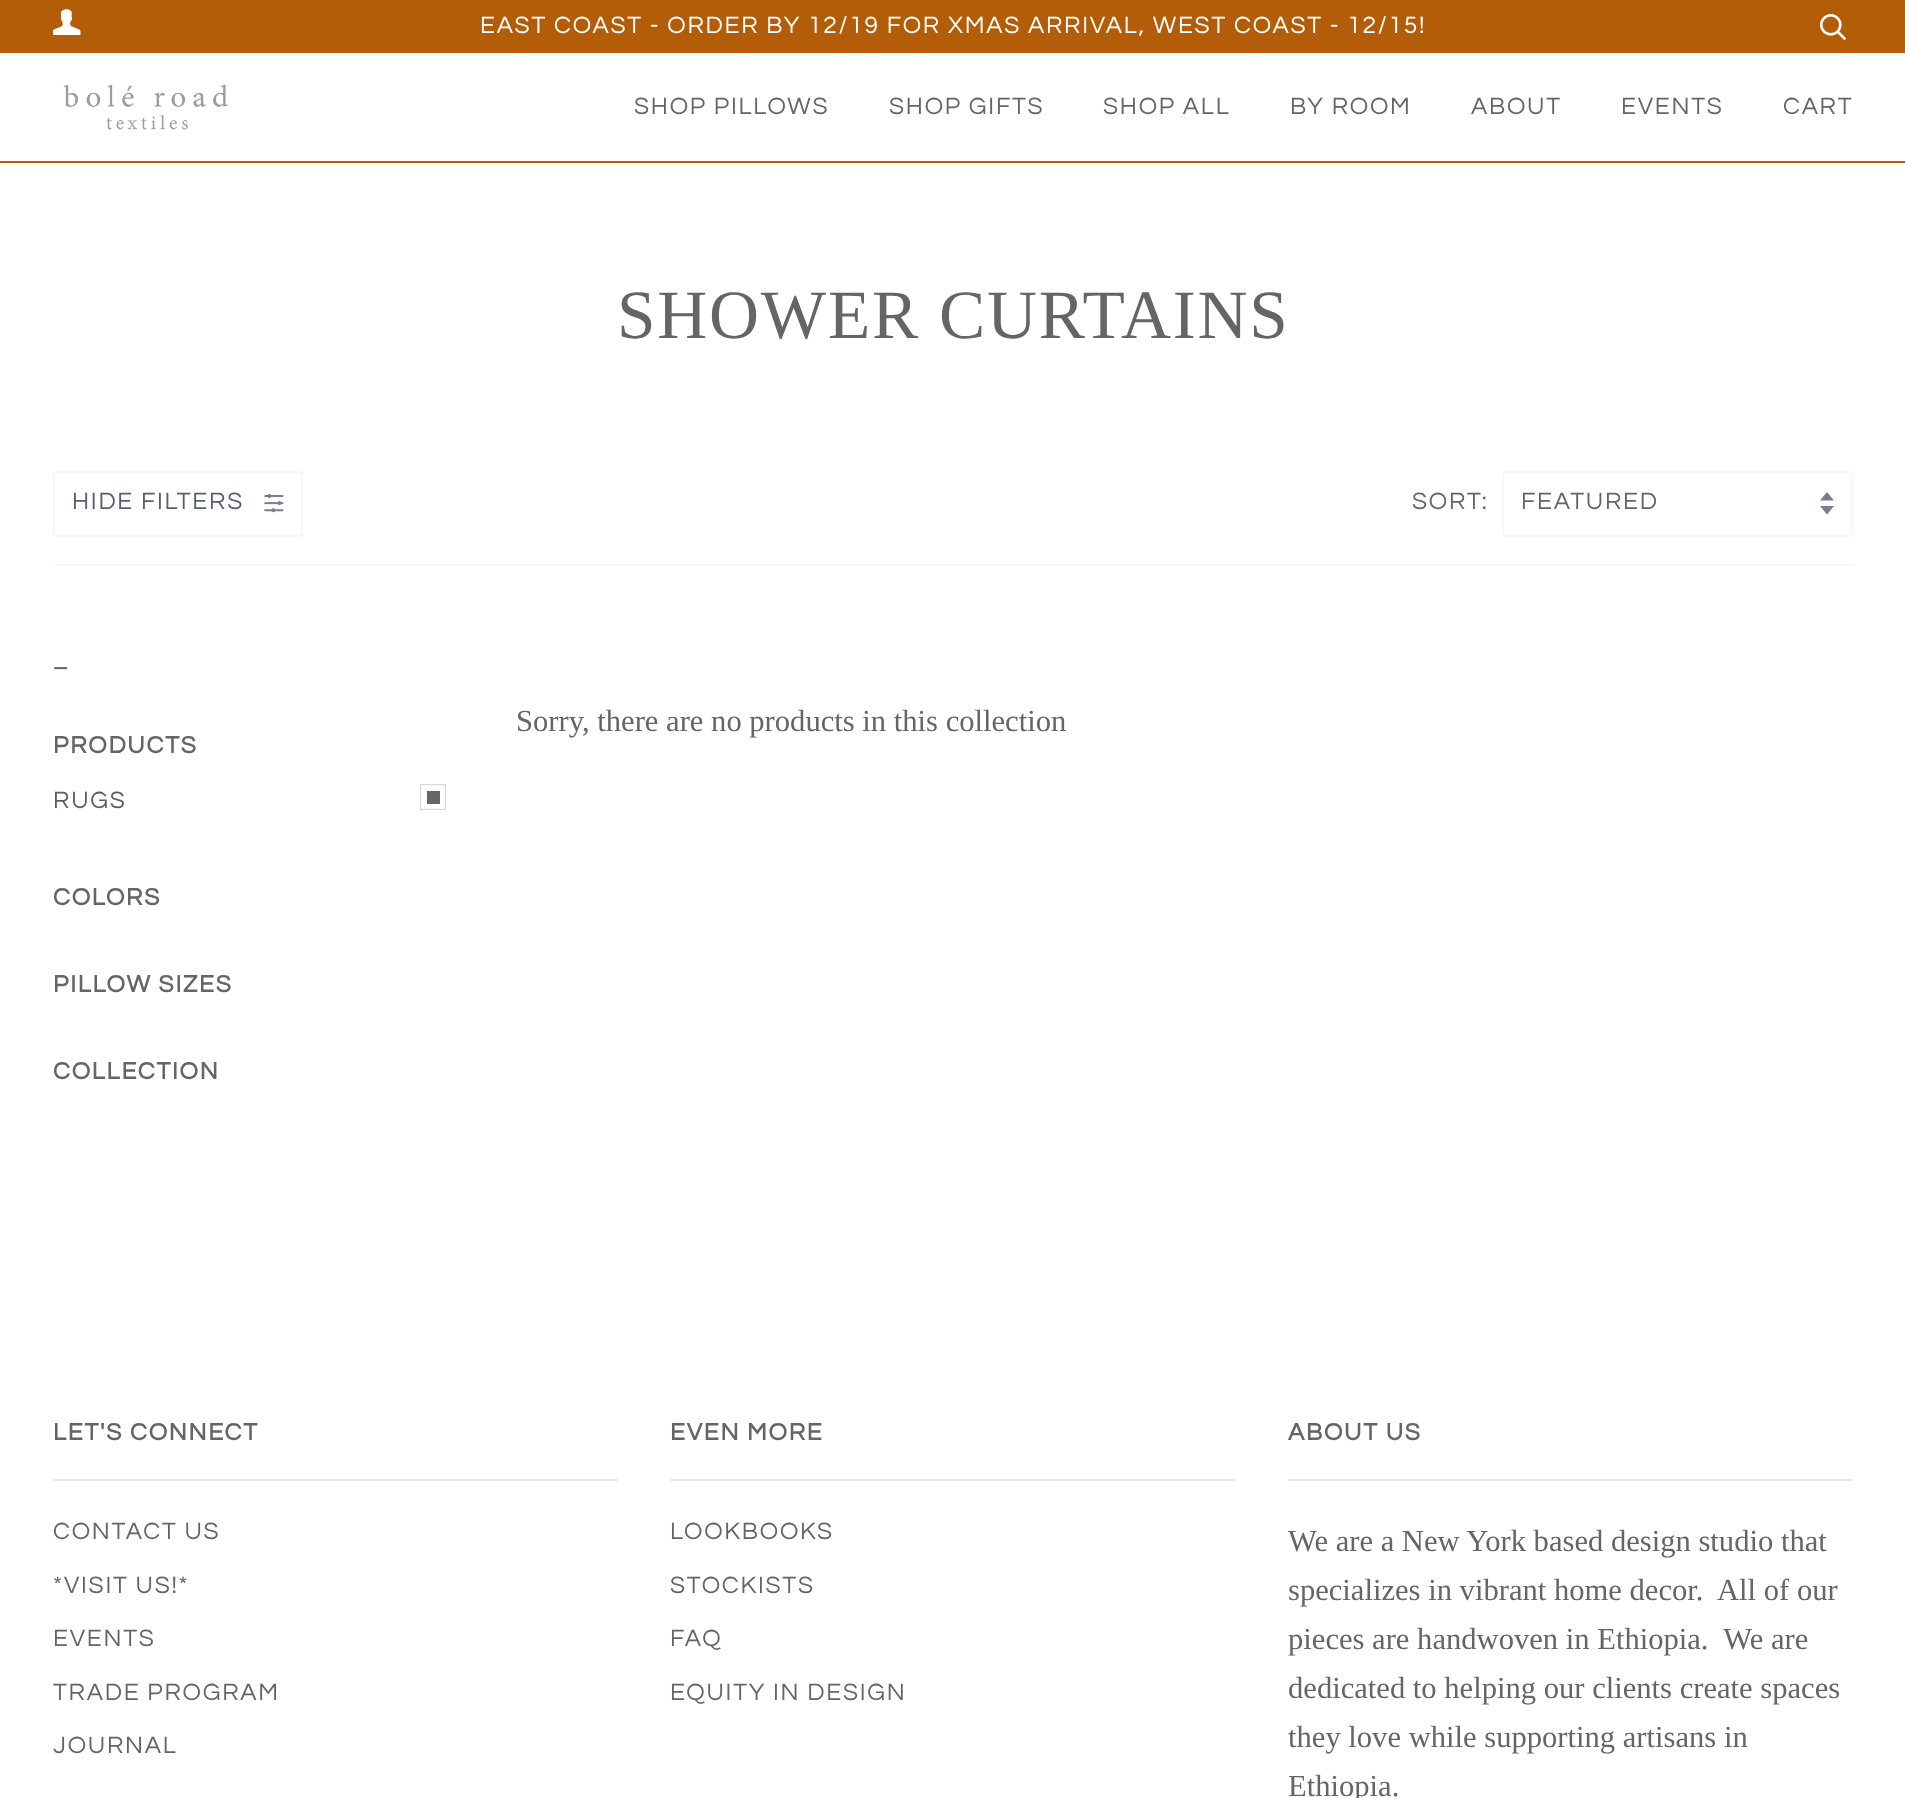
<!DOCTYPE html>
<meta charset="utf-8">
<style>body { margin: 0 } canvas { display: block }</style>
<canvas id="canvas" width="1905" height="1798"></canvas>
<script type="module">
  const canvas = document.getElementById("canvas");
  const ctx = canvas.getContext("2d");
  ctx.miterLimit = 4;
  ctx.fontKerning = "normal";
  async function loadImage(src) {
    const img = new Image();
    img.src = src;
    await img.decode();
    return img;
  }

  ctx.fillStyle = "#ffffff";
  ctx.fillRect(0, 0, 1905, 1798);
  ctx.fillStyle = "#b45d09";
  ctx.fillRect(0, 0, 1905, 53);
  ctx.drawImage(await loadImage("img1.png"), 53, 9, 28, 26);
  ctx.letterSpacing = "1.75px";
  ctx.font = "24.5px Questrial";
  ctx.fillStyle = "#ffffff";
  ctx.fillText("EAST COAST - ORDER BY 12/19 FOR XMAS ARRIVAL, WEST COAST - 12/15!", 480, 33);
  ctx.drawImage(await loadImage("img2.png"), 1820, 14, 26, 26);
  ctx.fillStyle = "#b45d09";
  ctx.fillRect(0, 161, 1905, 2);
  ctx.drawImage(await loadImage("img3.png"), 63, 84, 165, 46);
  ctx.fillStyle = "#656565";
  ctx.fillText("SHOP PILLOWS", 634, 114);
  ctx.fillText("SHOP GIFTS", 889, 114);
  ctx.fillText("SHOP ALL", 1103, 114);
  ctx.fillText("BY ROOM", 1290, 114);
  ctx.fillText("ABOUT", 1471, 114);
  ctx.fillText("EVENTS", 1621, 114);
  ctx.fillText("CART", 1783, 114);
  ctx.font = "69.25px Liberation Serif";
  ctx.fillText("SHOWER CURTAINS", 617, 338);
  ctx.beginPath();
  ctx.roundRect(54, 472, 248, 64, 3);
  ctx.strokeStyle = "#f7f7f7";
  ctx.lineWidth = 2;
  ctx.stroke();
  ctx.font = "24.5px Questrial";
  ctx.fillStyle = "#585e71";
  ctx.fillText("HIDE FILTERS", 72, 509);
  ctx.drawImage(await loadImage("img4.png"), 264, 494, 20, 19);
  ctx.fillStyle = "#656565";
  ctx.fillText("SORT:", 1412, 509);
  ctx.fillStyle = "#797e8d";
  ctx.beginPath();
  ctx.moveTo(1820, 506);
  ctx.lineTo(1827, 514.5);
  ctx.lineTo(1834, 506);
  ctx.closePath();
  ctx.moveTo(1827, 492);
  ctx.lineTo(1820, 500.5);
  ctx.lineTo(1834, 500.5);
  ctx.closePath();
  ctx.fill();
  ctx.beginPath();
  ctx.roundRect(1503, 472, 349, 64, 3);
  ctx.stroke();
  ctx.fillStyle = "#656565";
  ctx.fillText("FEATURED", 1521, 509);
  ctx.fillStyle = "#f7f7f7";
  ctx.fillRect(53, 564, 1800, 2);
  ctx.font = "bold 24.5px Questrial";
  ctx.fillStyle = "#656565";
  ctx.fillText("_", 53, 666);
  ctx.fillText("PRODUCTS", 53, 753);
  ctx.font = "24.5px Questrial";
  ctx.fillStyle = "#585e71";
  ctx.fillText("RUGS", 53, 808);
  ctx.save();
  ctx.beginPath();
  ctx.rect(420, 784, 26, 26);
  ctx.clip();
  ctx.beginPath();
  ctx.moveTo(420.5, 784.5);
  ctx.lineTo(445.5, 784.5);
  ctx.lineTo(445.5, 809.5);
  ctx.lineTo(420.5, 809.5);
  ctx.closePath();
  ctx.strokeStyle = "#d9d9d9";
  ctx.lineWidth = 1.3;
  ctx.stroke();
  ctx.restore();
  ctx.fillStyle = "#656565";
  ctx.fillRect(427, 791, 13, 13);
  ctx.font = "bold 24.5px Questrial";
  ctx.fillText("COLORS", 53, 905);
  ctx.fillText("PILLOW SIZES", 53, 992);
  ctx.fillText("COLLECTION", 53, 1079);
  ctx.letterSpacing = "0px";
  ctx.font = "30.6px Liberation Serif";
  ctx.fillText("Sorry, there are no products in this collection", 516, 731);
  ctx.letterSpacing = "1.75px";
  ctx.font = "bold 24.5px Questrial";
  ctx.fillText("LET'S CONNECT", 53, 1440);
  ctx.fillStyle = "#e8e8e8";
  ctx.fillRect(53, 1479, 565, 2);
  ctx.font = "24.5px Questrial";
  ctx.fillStyle = "#656565";
  ctx.fillText("CONTACT US", 53, 1539);
  ctx.fillText("*VISIT US!*", 53, 1593);
  ctx.fillText("EVENTS", 53, 1646);
  ctx.fillText("TRADE PROGRAM", 53, 1700);
  ctx.fillText("JOURNAL", 53, 1753);
  ctx.font = "bold 24.5px Questrial";
  ctx.fillText("EVEN MORE", 670, 1440);
  ctx.fillStyle = "#e8e8e8";
  ctx.fillRect(670, 1479, 566, 2);
  ctx.font = "24.5px Questrial";
  ctx.fillStyle = "#656565";
  ctx.fillText("LOOKBOOKS", 670, 1539);
  ctx.fillText("STOCKISTS", 670, 1593);
  ctx.fillText("FAQ", 670, 1646);
  ctx.fillText("EQUITY IN DESIGN", 670, 1700);
  ctx.font = "bold 24.5px Questrial";
  ctx.fillText("ABOUT US", 1288, 1440);
  ctx.fillStyle = "#e8e8e8";
  ctx.fillRect(1288, 1479, 565, 2);
  ctx.letterSpacing = "0px";
  ctx.font = "30.6px Liberation Serif";
  ctx.fillStyle = "#656565";
  ctx.fillText("We are a New York based design studio that", 1288, 1551);
  ctx.fillText("specializes in vibrant home decor.  All of our", 1288, 1600);
  ctx.fillText("pieces are handwoven in Ethiopia.  We are", 1288, 1649);
  ctx.fillText("dedicated to helping our clients create spaces", 1288, 1698);
  ctx.fillText("they love while supporting artisans in", 1288, 1747);
  ctx.fillText("Ethiopia.", 1288, 1796);
</script>
